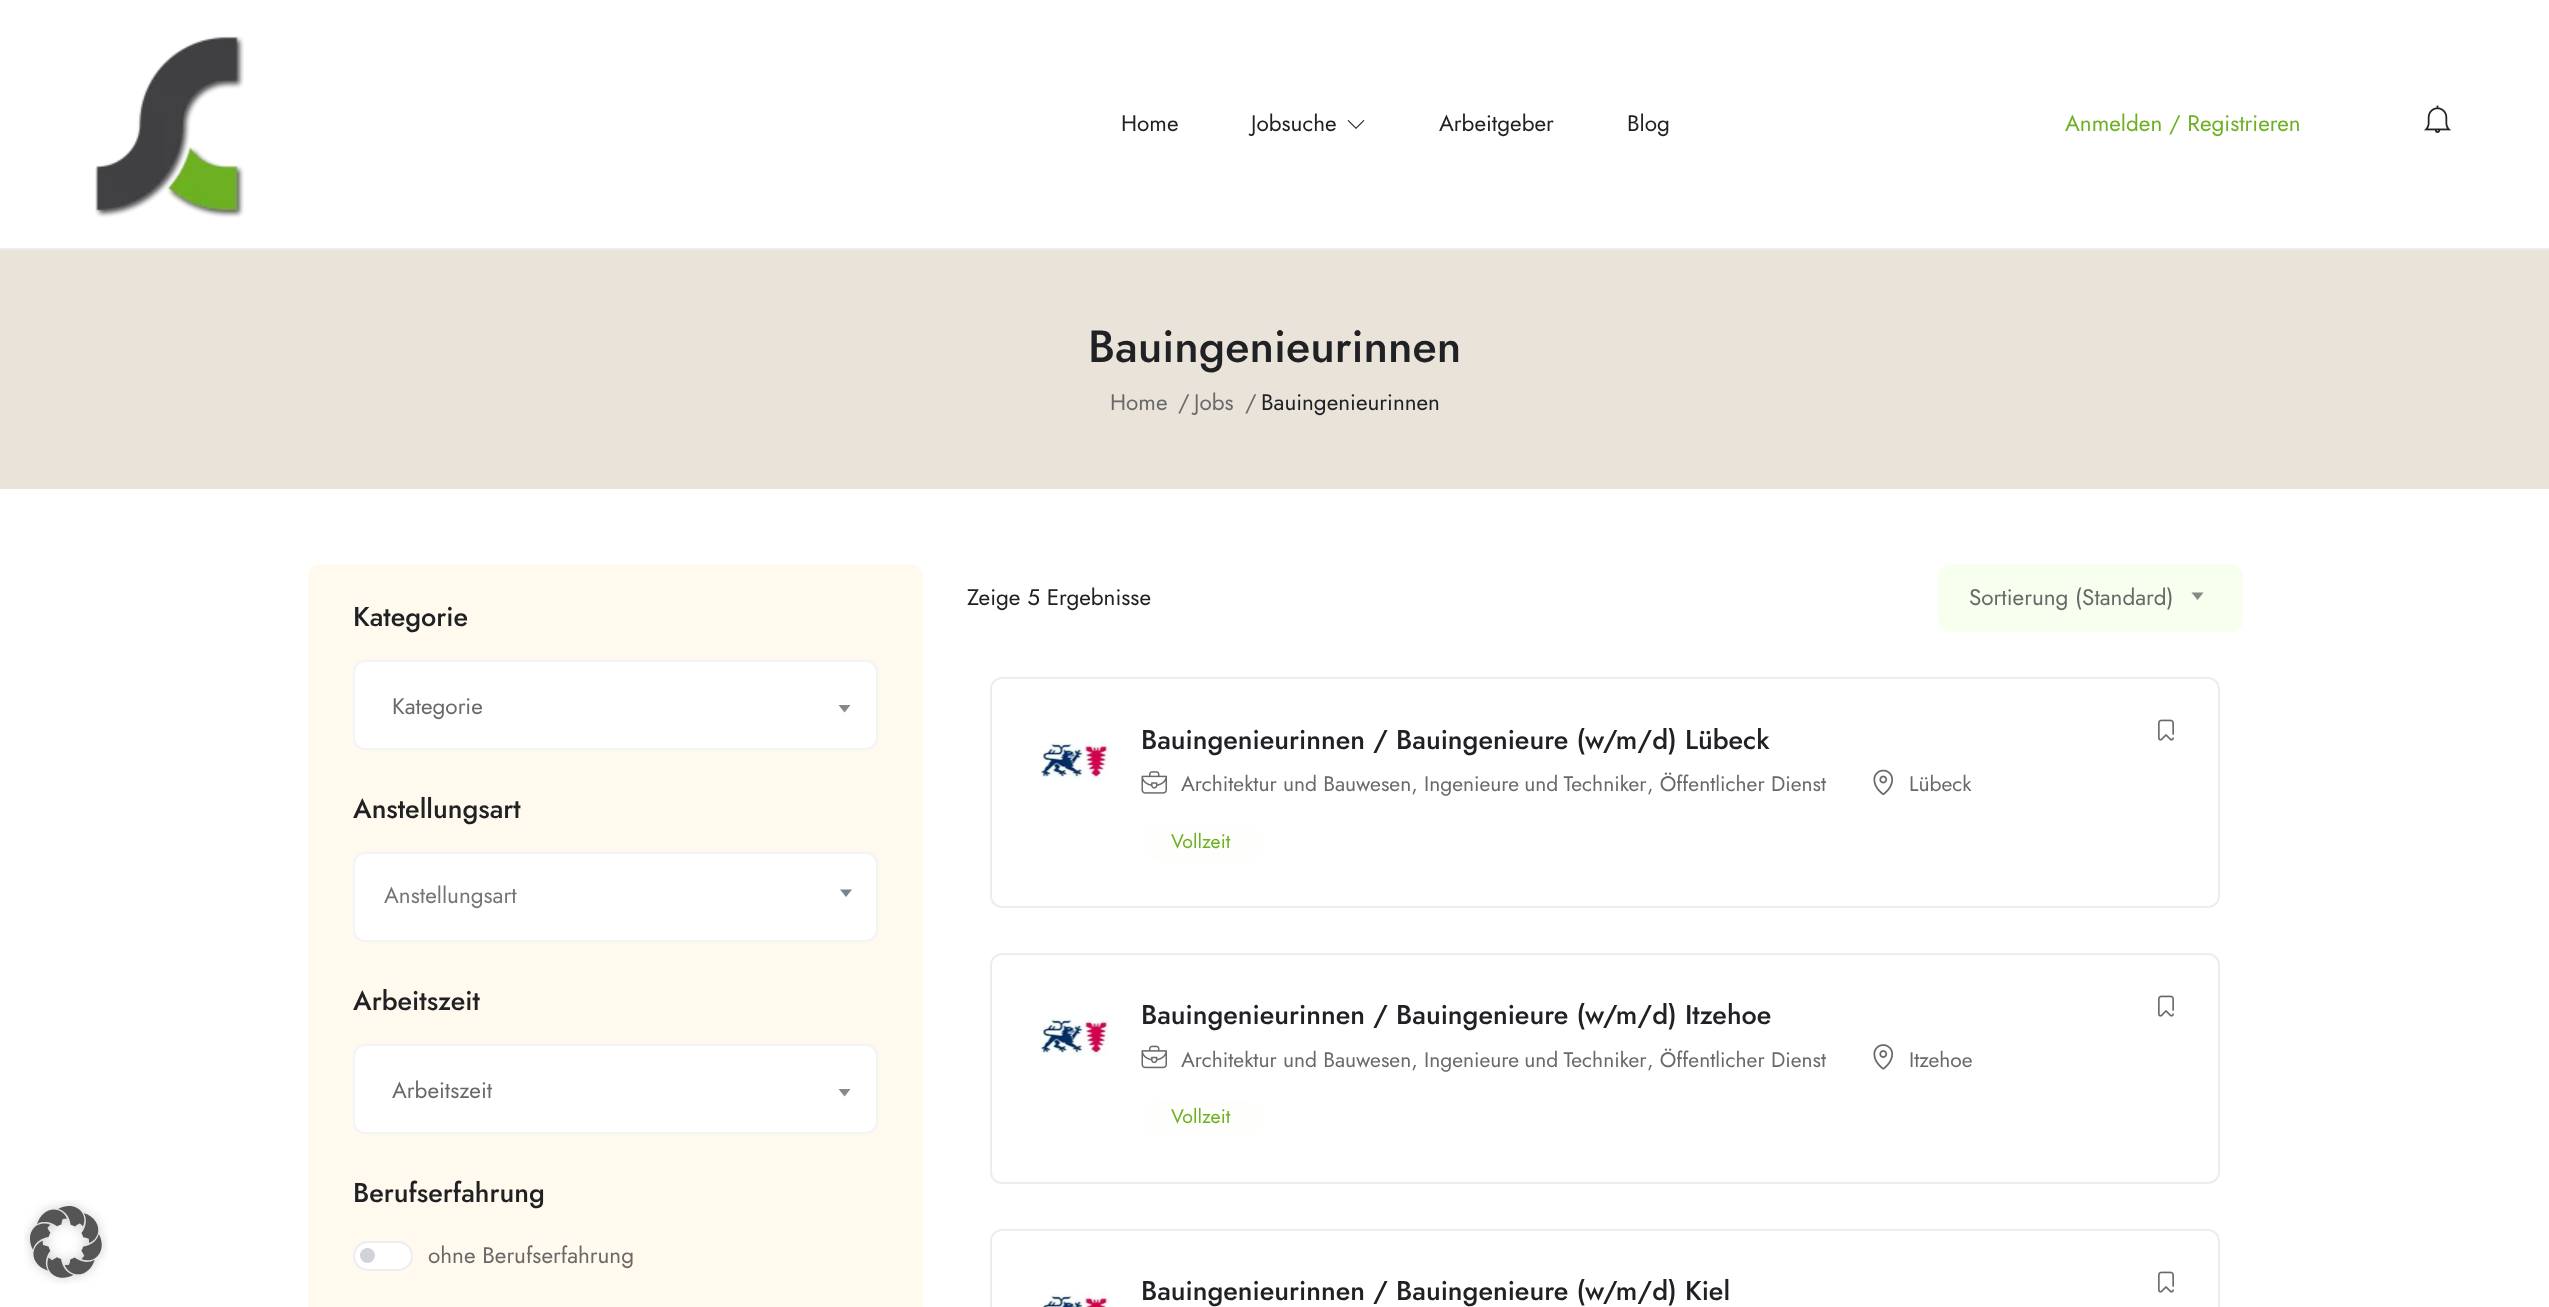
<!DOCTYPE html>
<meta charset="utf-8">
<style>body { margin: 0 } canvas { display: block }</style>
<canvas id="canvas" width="2549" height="1307"></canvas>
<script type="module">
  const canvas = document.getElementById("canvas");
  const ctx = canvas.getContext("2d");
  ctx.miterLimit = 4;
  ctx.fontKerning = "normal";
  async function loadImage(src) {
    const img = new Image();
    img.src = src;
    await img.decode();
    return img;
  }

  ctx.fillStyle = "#ffffff";
  ctx.fillRect(0, 0, 2549, 1307);
  ctx.drawImage(await loadImage("img1.png"), 24, 1200, 84, 84);
  ctx.fillStyle = "#ecedf2";
  ctx.fillRect(0, 248, 2549, 2);
  ctx.drawImage(await loadImage("img2.png"), 95, 36, 149, 182);
  ctx.font = "22.5px Jost";
  ctx.fillStyle = "#202124";
  ctx.fillText("Home", 1121, 131);
  ctx.fillText("Jobsuche", 1251, 131);
  ctx.beginPath();
  ctx.moveTo(1364.5, 120.5);
  ctx.lineTo(1356, 129);
  ctx.lineTo(1347.5, 120.5);
  ctx.lineTo(1348.5, 120);
  ctx.lineTo(1356, 127.5);
  ctx.lineTo(1363.5, 120);
  ctx.closePath();
  ctx.fill();
  ctx.fillText("Arbeitgeber", 1439, 131);
  ctx.fillText("Blog", 1627, 131);
  ctx.fillStyle = "#6db122";
  ctx.fillText("Anmelden / Registrieren", 2065, 131);
  ctx.drawImage(await loadImage("img3.png"), 2424, 105, 27, 28);
  ctx.fillStyle = "#eae3da";
  ctx.fillRect(0, 250, 2549, 239);
  ctx.font = "500 45px Jost";
  ctx.fillStyle = "#202124";
  ctx.fillText("Bauingenieurinnen", 1088, 362);
  ctx.font = "22.5px Jost";
  ctx.fillStyle = "#696969";
  ctx.fillText("Home", 1110, 410);
  ctx.fillText("/", 1178, 410);
  ctx.fillText("Jobs", 1194, 410);
  ctx.fillText("/", 1245, 410);
  ctx.fillStyle = "#202124";
  ctx.fillText("Bauingenieurinnen", 1261, 410);
  ctx.fillStyle = "#fffaed";
  ctx.beginPath();
  ctx.roundRect(308, 564, 615, 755, 12);
  ctx.fill();
  ctx.font = "500 27px Jost";
  ctx.fillStyle = "#202124";
  ctx.fillText("Kategorie", 353, 626);
  ctx.fillStyle = "#ffffff";
  ctx.beginPath();
  ctx.roundRect(354, 661, 523, 88, 11);
  ctx.fill();
  ctx.strokeStyle = "#f0f5f7";
  ctx.lineWidth = 2;
  ctx.stroke();
  ctx.font = "22.5px Jost";
  ctx.fillStyle = "#696969";
  ctx.fillText("Kategorie", 392, 714);
  ctx.fillStyle = "#888888";
  ctx.beginPath();
  ctx.moveTo(838.5, 705);
  ctx.lineTo(850.5, 705);
  ctx.lineTo(844.5, 712.5);
  ctx.closePath();
  ctx.fill();
  ctx.font = "500 27px Jost";
  ctx.fillStyle = "#202124";
  ctx.fillText("Anstellungsart", 353, 818);
  ctx.fillStyle = "#ffffff";
  ctx.beginPath();
  ctx.roundRect(354, 853, 523, 88, 11);
  ctx.fill();
  ctx.stroke();
  ctx.font = "22.5px Jost";
  ctx.fillStyle = "#757575";
  ctx.fillText("Anstellungsart", 384, 903);
  ctx.fillStyle = "#77838f";
  ctx.beginPath();
  ctx.moveTo(840, 889.5);
  ctx.lineTo(852, 889.5);
  ctx.lineTo(846, 897);
  ctx.closePath();
  ctx.fill();
  ctx.font = "500 27px Jost";
  ctx.fillStyle = "#202124";
  ctx.fillText("Arbeitszeit", 353, 1010);
  ctx.fillStyle = "#ffffff";
  ctx.beginPath();
  ctx.roundRect(354, 1045, 523, 88, 11);
  ctx.fill();
  ctx.stroke();
  ctx.font = "22.5px Jost";
  ctx.fillStyle = "#696969";
  ctx.fillText("Arbeitszeit", 392, 1098);
  ctx.fillStyle = "#888888";
  ctx.beginPath();
  ctx.moveTo(838.5, 1089);
  ctx.lineTo(850.5, 1089);
  ctx.lineTo(844.5, 1096.5);
  ctx.closePath();
  ctx.fill();
  ctx.font = "500 27px Jost";
  ctx.fillStyle = "#202124";
  ctx.fillText("Berufserfahrung", 353, 1202);
  ctx.fillStyle = "#ffffff";
  ctx.beginPath();
  ctx.roundRect(354, 1242, 58, 28, 14);
  ctx.fill();
  ctx.strokeStyle = "#ecedf2";
  ctx.stroke();
  ctx.font = "22.5px Jost";
  ctx.fillStyle = "#696969";
  ctx.fillText("ohne Berufserfahrung", 428, 1263);
  ctx.fillStyle = "#d2d3d8";
  ctx.beginPath();
  ctx.arc(367.5, 1255.5, 7.5, 0, Math.PI * 2);
  ctx.fill();
  ctx.fillStyle = "#202124";
  ctx.fillText("Zeige 5 Ergebnisse", 967, 605);
  ctx.fillStyle = "#f7ffee";
  ctx.beginPath();
  ctx.roundRect(1939, 565, 303, 66, 11);
  ctx.fill();
  ctx.strokeStyle = "#f7ffee";
  ctx.stroke();
  ctx.fillStyle = "#696969";
  ctx.fillText("Sortierung (Standard)", 1969, 605);
  ctx.fillStyle = "#888888";
  ctx.beginPath();
  ctx.moveTo(2191.5, 592.5);
  ctx.lineTo(2203.5, 592.5);
  ctx.lineTo(2197.5, 600);
  ctx.closePath();
  ctx.fill();
  ctx.beginPath();
  ctx.roundRect(991, 678, 1228, 229, 11);
  ctx.strokeStyle = "#ecedf2";
  ctx.stroke();
  ctx.drawImage(await loadImage("img4.png"), 1040, 740, 69, 41);
  ctx.font = "500 27px Jost";
  ctx.fillStyle = "#202124";
  ctx.fillText("Bauingenieurinnen / Bauingenieure (w/m/d) Lübeck", 1141, 749);
  ctx.drawImage(await loadImage("img5.png"), 1141, 771, 26, 23);
  ctx.font = "21px Jost";
  ctx.fillStyle = "#696969";
  ctx.fillText("Architektur und Bauwesen,", 1181, 791);
  ctx.wordSpacing = "-1px";
  ctx.fillText("Ingenieure und Techniker", 1424, 791);
  ctx.wordSpacing = "0px";
  ctx.fillText(", Öffentlicher Dienst", 1647, 791);
  ctx.drawImage(await loadImage("img6.png"), 1873, 769, 21, 27);
  ctx.fillText("Lübeck", 1909, 791);
  ctx.fillStyle = "#fefffc";
  ctx.beginPath();
  ctx.roundRect(1142, 824, 120, 37, 18.5);
  ctx.fill();
  ctx.font = "19.5px Jost";
  ctx.fillStyle = "#6db122";
  ctx.fillText("Vollzeit", 1171, 848);
  ctx.drawImage(await loadImage("img7.png"), 2158, 719, 16, 22);
  ctx.beginPath();
  ctx.roundRect(991, 954, 1228, 229, 11);
  ctx.stroke();
  ctx.drawImage(await loadImage("img4.png"), 1040, 1016, 69, 41);
  ctx.font = "500 27px Jost";
  ctx.fillStyle = "#202124";
  ctx.fillText("Bauingenieurinnen / Bauingenieure (w/m/d) Itzehoe", 1141, 1024);
  ctx.drawImage(await loadImage("img8.png"), 1141, 1045, 26, 24);
  ctx.font = "21px Jost";
  ctx.fillStyle = "#696969";
  ctx.fillText("Architektur und Bauwesen,", 1181, 1067);
  ctx.wordSpacing = "-1px";
  ctx.fillText("Ingenieure und Techniker", 1424, 1067);
  ctx.wordSpacing = "0px";
  ctx.fillText(", Öffentlicher Dienst", 1647, 1067);
  ctx.drawImage(await loadImage("img9.png"), 1873, 1044, 20, 26);
  ctx.fillText("Itzehoe", 1909, 1067);
  ctx.fillStyle = "#fefffc";
  ctx.beginPath();
  ctx.roundRect(1142, 1100, 120, 37, 18.5);
  ctx.fill();
  ctx.font = "19.5px Jost";
  ctx.fillStyle = "#6db122";
  ctx.fillText("Vollzeit", 1171, 1123);
  ctx.drawImage(await loadImage("img7.png"), 2158, 995, 16, 22);
  ctx.beginPath();
  ctx.roundRect(991, 1230, 1228, 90, 11);
  ctx.stroke();
  ctx.drawImage(await loadImage("img10.png"), 1041, 1292, 68, 15);
  ctx.font = "500 27px Jost";
  ctx.fillStyle = "#202124";
  ctx.fillText("Bauingenieurinnen / Bauingenieure (w/m/d) Kiel", 1141, 1300);
  ctx.drawImage(await loadImage("img7.png"), 2158, 1271, 16, 22);
</script>
